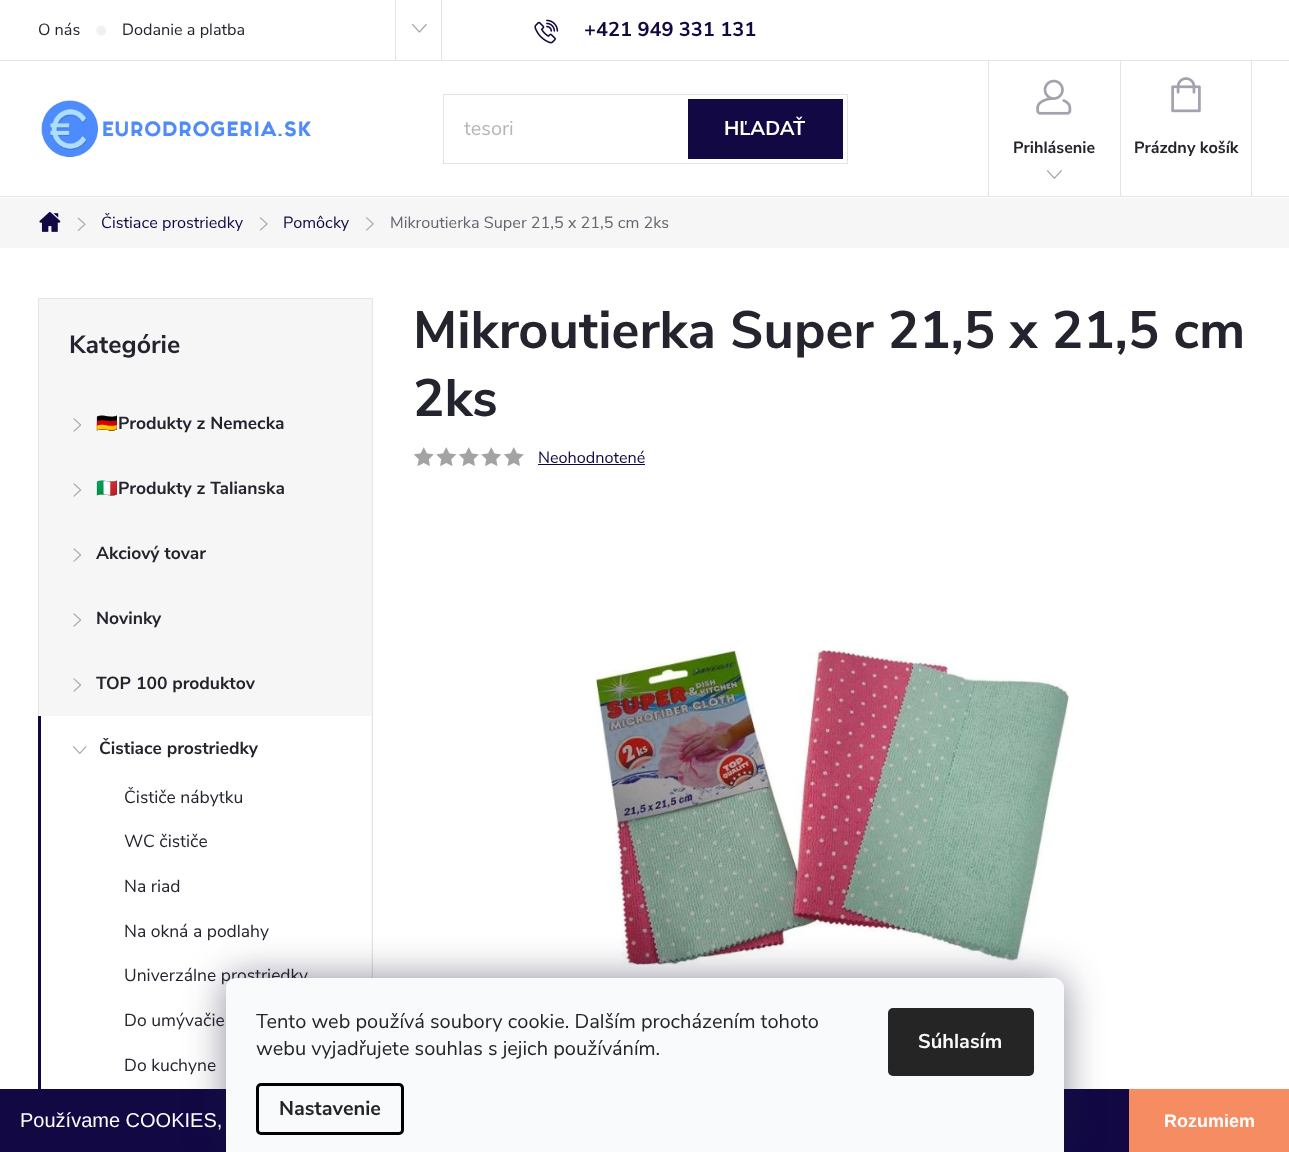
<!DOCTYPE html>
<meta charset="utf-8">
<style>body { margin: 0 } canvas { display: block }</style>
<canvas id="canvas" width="1289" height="1152"></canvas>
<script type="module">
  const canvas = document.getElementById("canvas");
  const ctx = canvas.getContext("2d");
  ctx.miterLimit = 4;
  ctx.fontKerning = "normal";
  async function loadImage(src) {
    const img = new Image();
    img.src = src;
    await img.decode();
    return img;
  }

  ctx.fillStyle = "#ffffff";
  ctx.fillRect(0, 0, 1289, 1152);
  ctx.fillStyle = "#e4e4e4";
  ctx.fillRect(0, 60, 1289, 1);
  ctx.font = "16.25px Nunito Sans";
  ctx.fillStyle = "#24242e";
  ctx.fillText("O nás", 38, 35);
  ctx.drawImage(await loadImage("img1.png"), 96, 25, 10, 11);
  ctx.fillText("Dodanie a platba", 122, 35);
  ctx.fillStyle = "#e4e4e4";
  ctx.fillRect(441, 0, 1, 60);
  ctx.fillRect(395, 0, 1, 60);
  ctx.drawImage(await loadImage("img2.png"), 412, 23, 15, 10);
  ctx.drawImage(await loadImage("img3.png"), 534, 19, 25, 25);
  ctx.font = "bold 20px Nunito Sans";
  ctx.fillStyle = "#110844";
  ctx.fillText("+421 949 331 131", 584, 36);
  ctx.fillStyle = "#e4e4e4";
  ctx.fillRect(0, 196, 1289, 1);
  ctx.drawImage(await loadImage("img4.png"), 41, 100, 270, 58);
  ctx.strokeStyle = "#e4e4e4";
  ctx.strokeRect(443.5, 94.5, 404, 69);
  ctx.font = "20px Nunito Sans";
  ctx.fillStyle = "#b6b6b6";
  ctx.fillText("tesori", 464, 135);
  ctx.fillStyle = "#110844";
  ctx.fillRect(688, 99, 155, 60);
  ctx.font = "bold 20px Nunito Sans";
  ctx.fillStyle = "#ffffff";
  ctx.fillText("HĽADAŤ", 724, 135);
  ctx.fillStyle = "#e4e4e4";
  ctx.fillRect(988, 61, 1, 135);
  ctx.drawImage(await loadImage("img5.png"), 1036, 79, 36, 36);
  ctx.font = "bold 16.25px Nunito Sans";
  ctx.fillStyle = "#24242e";
  ctx.fillText("Prihlásenie", 1013, 153);
  ctx.drawImage(await loadImage("img6.png"), 1047, 170, 15, 9);
  ctx.fillStyle = "#e4e4e4";
  ctx.fillRect(1251, 61, 1, 135);
  ctx.fillRect(1120, 61, 1, 135);
  ctx.drawImage(await loadImage("img7.png"), 1171, 77, 30, 36);
  ctx.fillStyle = "#24242e";
  ctx.fillText("Prázdny košík", 1134, 153);
  ctx.fillStyle = "#f6f6f6";
  ctx.fillRect(0, 198, 1289, 50);
  ctx.drawImage(await loadImage("img8.png"), 39, 212, 22, 20);
  ctx.drawImage(await loadImage("img9.png"), 77, 217, 9, 14);
  ctx.font = "16.25px Nunito Sans";
  ctx.fillStyle = "#110844";
  ctx.fillText("Čistiace prostriedky", 101, 228);
  ctx.drawImage(await loadImage("img10.png"), 259, 217, 9, 14);
  ctx.fillText("Pomôcky", 283, 228);
  ctx.drawImage(await loadImage("img11.png"), 366, 217, 8, 14);
  ctx.fillStyle = "#656570";
  ctx.fillText("Mikroutierka Super 21,5 x 21,5 cm 2ks", 390, 228);
  ctx.fillStyle = "#f6f6f6";
  ctx.fillRect(39, 299, 333, 679);
  ctx.strokeRect(38.5, 298.5, 334, 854);
  ctx.font = "bold 25px Nunito Sans";
  ctx.fillStyle = "#24242e";
  ctx.fillText("Kategórie", 69, 353);
  ctx.drawImage(await loadImage("img12.png"), 73, 418, 9, 14);
  ctx.font = "bold 17.5px Noto Color Emoji";
  ctx.fillText("🇩🇪", 96, 429);
  ctx.font = "bold 17.5px Nunito Sans";
  ctx.fillText("Produkty z Nemecka", 118, 429);
  ctx.drawImage(await loadImage("img12.png"), 73, 483, 9, 14);
  ctx.font = "bold 17.5px Noto Color Emoji";
  ctx.fillText("🇮🇹", 96, 494);
  ctx.font = "bold 17.5px Nunito Sans";
  ctx.fillText("Produkty z Talianska", 118, 494);
  ctx.drawImage(await loadImage("img12.png"), 73, 548, 9, 14);
  ctx.fillText("Akciový tovar", 96, 559);
  ctx.drawImage(await loadImage("img12.png"), 73, 613, 9, 14);
  ctx.fillText("Novinky", 96, 624);
  ctx.drawImage(await loadImage("img12.png"), 73, 678, 9, 14);
  ctx.fillText("TOP 100 produktov", 96, 689);
  ctx.fillStyle = "#ffffff";
  ctx.fillRect(41, 716, 330, 262);
  ctx.fillStyle = "#110844";
  ctx.fillRect(38, 716, 3, 373);
  ctx.drawImage(await loadImage("img13.png"), 73, 746, 14, 8);
  ctx.fillStyle = "#24242e";
  ctx.fillText("Čistiace prostriedky", 99, 754);
  ctx.font = "17.5px Nunito Sans";
  ctx.fillText("Čističe nábytku", 124, 803);
  ctx.fillText("WC čističe", 124, 847);
  ctx.fillText("Na riad", 124, 892);
  ctx.fillText("Na okná a podlahy", 124, 937);
  ctx.fillText("Univerzálne prostriedky", 124, 981);
  ctx.fillText("Do umývačie", 124, 1026);
  ctx.fillText("Do kuchyne", 124, 1071);
  ctx.font = "bold 52.5px Nunito Sans";
  ctx.fillText("Mikroutierka Super 21,5 x 21,5 cm", 413, 348);
  ctx.fillText("2ks", 413, 416);
  ctx.drawImage(await loadImage("img14.png"), 413, 447, 21, 19);
  ctx.drawImage(await loadImage("img15.png"), 436, 447, 21, 19);
  ctx.drawImage(await loadImage("img14.png"), 458, 447, 21, 19);
  ctx.drawImage(await loadImage("img15.png"), 481, 447, 21, 19);
  ctx.drawImage(await loadImage("img14.png"), 503, 447, 21, 19);
  ctx.font = "16.25px Nunito Sans";
  ctx.fillStyle = "#110844";
  ctx.fillText("Neohodnotené", 538, 463);
  ctx.fillRect(538, 464, 107, 1);
  ctx.drawImage(await loadImage("img16.png"), 595, 650, 474, 315);
  ctx.fillRect(0, 1089, 1129, 63);
  ctx.fillStyle = "rgba(27, 25, 57, 0.5)";
  ctx.filter = "blur(19px)";
  ctx.beginPath();
  ctx.roundRect(226, 978, 838, 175, 10);
  ctx.fill();
  ctx.filter = "none";
  ctx.fillStyle = "#f8fafb";
  ctx.beginPath();
  ctx.moveTo(236, 978);
  ctx.lineTo(1054, 978);
  ctx.bezierCurveTo(1059.5, 978, 1064, 982.5, 1064, 988);
  ctx.lineTo(1064, 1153);
  ctx.lineTo(226, 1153);
  ctx.lineTo(226, 988);
  ctx.bezierCurveTo(226, 982.5, 230.5, 978, 236, 978);
  ctx.closePath();
  ctx.fill();
  ctx.font = "20px Nunito Sans";
  ctx.fillStyle = "#252525";
  ctx.fillText("Tento web používá soubory cookie. Dalším procházením tohoto", 256, 1028);
  ctx.fillText("webu vyjadřujete souhlas s jejich používáním.", 256, 1055);
  ctx.beginPath();
  ctx.roundRect(257.5, 1084.5, 145, 49, 3.5);
  ctx.strokeStyle = "#000000";
  ctx.lineWidth = 3;
  ctx.stroke();
  ctx.font = "bold 20px Nunito Sans";
  ctx.fillText("Nastavenie", 279, 1115);
  ctx.beginPath();
  ctx.roundRect(888, 1008, 146, 68, 5);
  ctx.fill();
  ctx.fillStyle = "#f8fafb";
  ctx.fillText("Súhlasím", 918, 1048);
  ctx.font = "20px Liberation Sans";
  ctx.fillStyle = "#ffffff";
  ctx.fillText("Používame COOKIES,", 20, 1127);
  ctx.fillStyle = "#f68c61";
  ctx.fillRect(1129, 1089, 160, 63);
  ctx.font = "bold 18px Liberation Sans";
  ctx.fillStyle = "#ffffff";
  ctx.fillText("Rozumiem", 1164, 1127);
</script>
